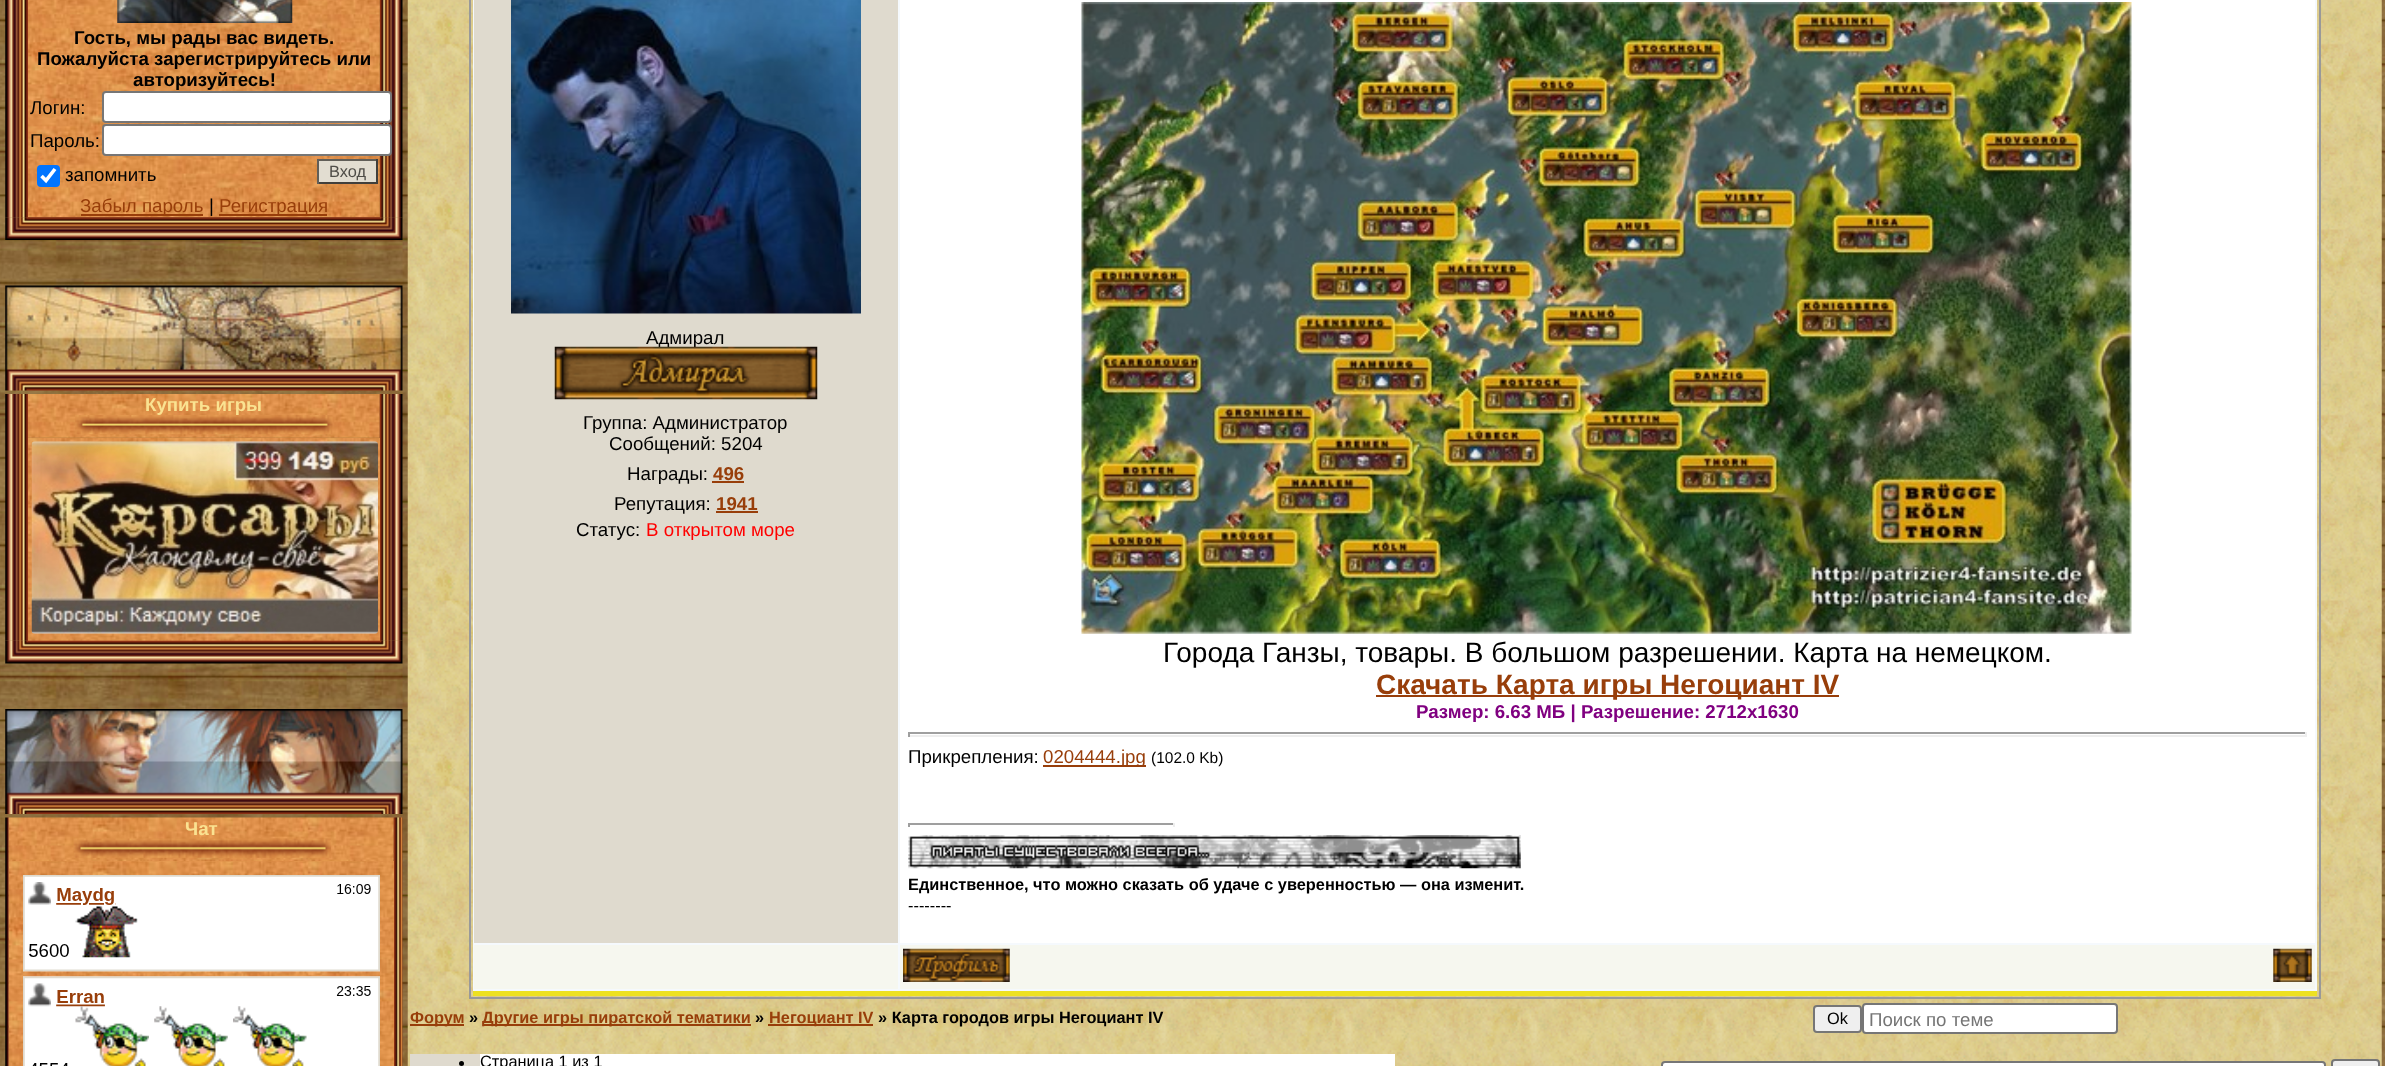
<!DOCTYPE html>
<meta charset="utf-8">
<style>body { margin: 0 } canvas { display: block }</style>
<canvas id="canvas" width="2385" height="1066"></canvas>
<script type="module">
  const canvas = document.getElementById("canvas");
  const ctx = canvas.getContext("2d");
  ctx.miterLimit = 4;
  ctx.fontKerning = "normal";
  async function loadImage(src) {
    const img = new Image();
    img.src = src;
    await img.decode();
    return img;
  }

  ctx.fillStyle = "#ffffff";
  ctx.fillRect(0, 0, 2385, 1066);
  ctx.drawImage(await loadImage("img1.png"), 0, 0, 2385, 1066);
  ctx.drawImage(await loadImage("img2.png"), 5, 0, 23, 218);
  ctx.drawImage(await loadImage("img3.png"), 379, 0, 24, 218);
  ctx.drawImage(await loadImage("img4.png"), 28, 0, 352, 218);
  ctx.drawImage(await loadImage("img5.png"), 117, 0, 176, 23);
  ctx.font = "bold 18.7px Liberation Sans";
  ctx.fillStyle = "#000000";
  ctx.fillText("Гость, мы рады вас видеть.", 74, 44);
  ctx.fillText("Пожалуйста зарегистрируйтесь или", 37, 65);
  ctx.fillText("авторизуйтесь!", 133, 86);
  ctx.font = "18.7px Liberation Sans";
  ctx.fillText("Логин:", 30, 114);
  ctx.fillStyle = "#ffffff";
  ctx.beginPath();
  ctx.roundRect(103, 92, 288, 30, 3);
  ctx.fill();
  ctx.strokeStyle = "#767676";
  ctx.lineWidth = 2;
  ctx.stroke();
  ctx.fillStyle = "#000000";
  ctx.fillText("Пароль:", 30, 147);
  ctx.fillStyle = "#ffffff";
  ctx.beginPath();
  ctx.roundRect(103, 125, 288, 30, 3);
  ctx.fill();
  ctx.stroke();
  ctx.fillStyle = "#0075ff";
  ctx.beginPath();
  ctx.roundRect(37, 165, 23, 22, 4);
  ctx.fill();
  ctx.beginPath();
  ctx.moveTo(41.5, 176);
  ctx.lineTo(46, 180.5);
  ctx.lineTo(55, 169);
  ctx.strokeStyle = "#ffffff";
  ctx.lineWidth = 3.6;
  ctx.stroke();
  ctx.fillStyle = "#000000";
  ctx.fillText("запомнить", 65, 181);
  ctx.fillStyle = "#e2ddd1";
  ctx.fillRect(319, 161, 57, 21);
  ctx.fillStyle = "#615e58";
  ctx.fillRect(317, 159, 61, 2);
  ctx.fillStyle = "#413f3b";
  ctx.fillRect(376, 159, 2, 25);
  ctx.fillRect(317, 182, 61, 2);
  ctx.fillStyle = "#615e58";
  ctx.fillRect(317, 159, 2, 25);
  ctx.font = "16.35px Liberation Sans";
  ctx.fillStyle = "#4f4d48";
  ctx.fillText("Вход", 329, 177);
  ctx.fillStyle = "#983e0a";
  ctx.fillRect(81, 214, 122, 2);
  ctx.font = "18.7px Liberation Sans";
  ctx.fillText("Забыл пароль", 80, 212);
  ctx.fillStyle = "#000000";
  ctx.fillText("|", 209, 212);
  ctx.fillStyle = "#983e0a";
  ctx.fillRect(219, 214, 108, 2);
  ctx.fillText("Регистрация", 219, 212);
  ctx.drawImage(await loadImage("img6.png"), 5, 217, 398, 23);
  ctx.drawImage(await loadImage("img7.png"), 5, 285, 398, 106);
  ctx.drawImage(await loadImage("img8.png"), 5, 394, 23, 247);
  ctx.drawImage(await loadImage("img9.png"), 28, 394, 352, 44);
  ctx.font = "bold 18.7px Liberation Sans";
  ctx.fillStyle = "#fae291";
  ctx.fillText("Купить игры", 145, 411);
  ctx.drawImage(await loadImage("img10.png"), 75, 415, 258, 20);
  ctx.drawImage(await loadImage("img11.png"), 379, 394, 24, 247);
  ctx.fillStyle = "#e3944f";
  ctx.fillRect(28, 438, 352, 203);
  ctx.drawImage(await loadImage("img12.png"), 28, 437, 352, 204);
  ctx.drawImage(await loadImage("img13.png"), 31, 441, 347, 193);
  ctx.drawImage(await loadImage("img14.png"), 5, 640, 398, 24);
  ctx.drawImage(await loadImage("img15.png"), 5, 709, 398, 105);
  ctx.drawImage(await loadImage("img16.png"), 5, 817, 4, 249);
  ctx.drawImage(await loadImage("img17.png"), 8, 817, 386, 45);
  ctx.fillStyle = "#fae291";
  ctx.fillText("Чат", 185, 835);
  ctx.drawImage(await loadImage("img18.png"), 73, 838, 258, 20);
  ctx.drawImage(await loadImage("img19.png"), 393, 817, 10, 249);
  ctx.fillStyle = "#e3944f";
  ctx.fillRect(9, 861, 385, 205);
  ctx.drawImage(await loadImage("img20.png"), 8, 861, 386, 205);
  ctx.drawImage(await loadImage("img21.png"), 23, 875, 357, 191);
  ctx.drawImage(await loadImage("img22.png"), 407, 0, 1975, 1066);
  ctx.strokeStyle = "#999999";
  ctx.lineWidth = 2;
  ctx.strokeRect(470, -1, 1850, 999);
  ctx.fillStyle = "#f5f9fd";
  ctx.fillRect(473, 0, 1844, 991);
  ctx.fillStyle = "#ede121";
  ctx.fillRect(473, 991, 1844, 5);
  ctx.fillStyle = "#dfdace";
  ctx.fillRect(474, 0, 424, 943);
  ctx.drawImage(await loadImage("img23.png"), 511, 0, 350, 314);
  ctx.font = "18.7px Liberation Sans";
  ctx.fillStyle = "#000000";
  ctx.fillText("Адмирал", 646, 344);
  ctx.drawImage(await loadImage("img24.png"), 554, 346, 264, 54);
  ctx.fillText("Группа: Администратор", 583, 429);
  ctx.fillText("Сообщений: 5204", 609, 450);
  ctx.fillText("Награды:", 627, 480);
  ctx.font = "bold 18.7px Liberation Sans";
  ctx.fillStyle = "#983e0a";
  ctx.fillText("496", 713, 480);
  ctx.fillRect(712, 481, 32, 2);
  ctx.font = "18.7px Liberation Sans";
  ctx.fillStyle = "#000000";
  ctx.fillText("Репутация:", 614, 510);
  ctx.font = "bold 18.7px Liberation Sans";
  ctx.fillStyle = "#983e0a";
  ctx.fillText("1941", 716, 510);
  ctx.fillRect(716, 511, 42, 2);
  ctx.font = "18.7px Liberation Sans";
  ctx.fillStyle = "#000000";
  ctx.fillText("Статус:", 576, 536);
  ctx.fillStyle = "#ff0000";
  ctx.fillText("В открытом море", 646, 536);
  ctx.fillStyle = "#ffffff";
  ctx.fillRect(900, 0, 1415, 943);
  ctx.drawImage(await loadImage("img25.png"), 1081, 2, 1051, 632);
  ctx.font = "28px Liberation Sans";
  ctx.fillStyle = "#000000";
  ctx.fillText("Города Ганзы, товары. В большом разрешении. Карта на немецком.", 1163, 662);
  ctx.fillStyle = "#983e0a";
  ctx.fillRect(1376, 695, 463, 2);
  ctx.font = "bold 28px Liberation Sans";
  ctx.fillText("Скачать Карта игры Негоциант IV", 1376, 694);
  ctx.font = "bold 18.7px Liberation Sans";
  ctx.fillStyle = "#800080";
  ctx.fillText("Размер: 6.63 МБ | Разрешение: 2712x1630", 1416, 718);
  ctx.fillStyle = "#9f9f9f";
  ctx.fillRect(908, 732, 1399, 2);
  ctx.fillStyle = "#eeeeee";
  ctx.fillRect(2305, 732, 2, 5);
  ctx.fillRect(908, 735, 1399, 2);
  ctx.fillStyle = "#9f9f9f";
  ctx.fillRect(908, 732, 2, 5);
  ctx.font = "18.7px Liberation Sans";
  ctx.fillStyle = "#000000";
  ctx.fillText("Прикрепления:", 908, 763);
  ctx.fillStyle = "#983e0a";
  ctx.fillRect(1043, 765, 103, 2);
  ctx.fillText("0204444.jpg", 1043, 763);
  ctx.font = "15.5px Liberation Sans";
  ctx.fillStyle = "#000000";
  ctx.fillText("(102.0 Kb)", 1151, 763);
  ctx.fillStyle = "#9f9f9f";
  ctx.fillRect(908, 823, 266, 2);
  ctx.fillStyle = "#eeeeee";
  ctx.fillRect(1173, 823, 2, 4);
  ctx.fillStyle = "#9f9f9f";
  ctx.fillRect(908, 823, 2, 4);
  ctx.drawImage(await loadImage("img26.png"), 908, 835, 613, 34);
  ctx.font = "bold 16.35px Liberation Sans";
  ctx.fillStyle = "#000000";
  ctx.fillText("Единственное, что можно сказать об удаче с уверенностью — она изменит.", 908, 890);
  ctx.font = "16.35px Liberation Sans";
  ctx.fillText("--------", 908, 911);
  ctx.fillStyle = "#f6f7ef";
  ctx.fillRect(474, 945, 424, 44);
  ctx.fillRect(900, 945, 1415, 44);
  ctx.drawImage(await loadImage("img27.png"), 903, 948, 107, 34);
  ctx.drawImage(await loadImage("img28.png"), 2273, 948, 39, 34);
  ctx.fillStyle = "#983e0a";
  ctx.fillRect(410, 1024, 54, 2);
  ctx.font = "bold 16.35px Liberation Sans";
  ctx.fillText("Форум", 410, 1023);
  ctx.fillStyle = "#000000";
  ctx.fillText("»", 469, 1023);
  ctx.fillStyle = "#983e0a";
  ctx.fillRect(483, 1024, 268, 2);
  ctx.fillText("Другие игры пиратской тематики", 482, 1023);
  ctx.fillStyle = "#000000";
  ctx.fillText("»", 755, 1023);
  ctx.fillStyle = "#983e0a";
  ctx.fillRect(768, 1024, 105, 2);
  ctx.fillText("Негоциант IV", 769, 1023);
  ctx.fillStyle = "#000000";
  ctx.fillText("» Карта городов игры Негоциант IV", 878, 1023);
  ctx.fillStyle = "#efefef";
  ctx.beginPath();
  ctx.roundRect(1814, 1006, 47, 26, 3);
  ctx.fill();
  ctx.strokeStyle = "#767676";
  ctx.stroke();
  ctx.font = "16.35px Liberation Sans";
  ctx.fillStyle = "#000000";
  ctx.fillText("Ok", 1827, 1024);
  ctx.fillStyle = "#ffffff";
  ctx.beginPath();
  ctx.roundRect(1863, 1004, 254, 29, 3);
  ctx.fill();
  ctx.stroke();
  ctx.font = "18.7px Liberation Sans";
  ctx.fillStyle = "#757575";
  ctx.fillText("Поиск по теме", 1869, 1026);
  ctx.fillStyle = "#dfdace";
  ctx.fillRect(410, 1054, 70, 12);
  ctx.fillStyle = "#ffffff";
  ctx.fillRect(480, 1054, 915, 12);
  ctx.fillStyle = "#000000";
  ctx.beginPath();
  ctx.arc(461.5, 1063.5, 2.5, 0, Math.PI * 2);
  ctx.fill();
  ctx.font = "16.35px Liberation Sans";
  ctx.fillText("Страница 1 из 1", 480, 1067);
  ctx.fillStyle = "#ffffff";
  ctx.beginPath();
  ctx.roundRect(1662, 1062, 663, 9, 3);
  ctx.fill();
  ctx.stroke();
  ctx.fillStyle = "#efefef";
  ctx.beginPath();
  ctx.roundRect(2332, 1060, 47, 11, 3);
  ctx.fill();
  ctx.stroke();
</script>
